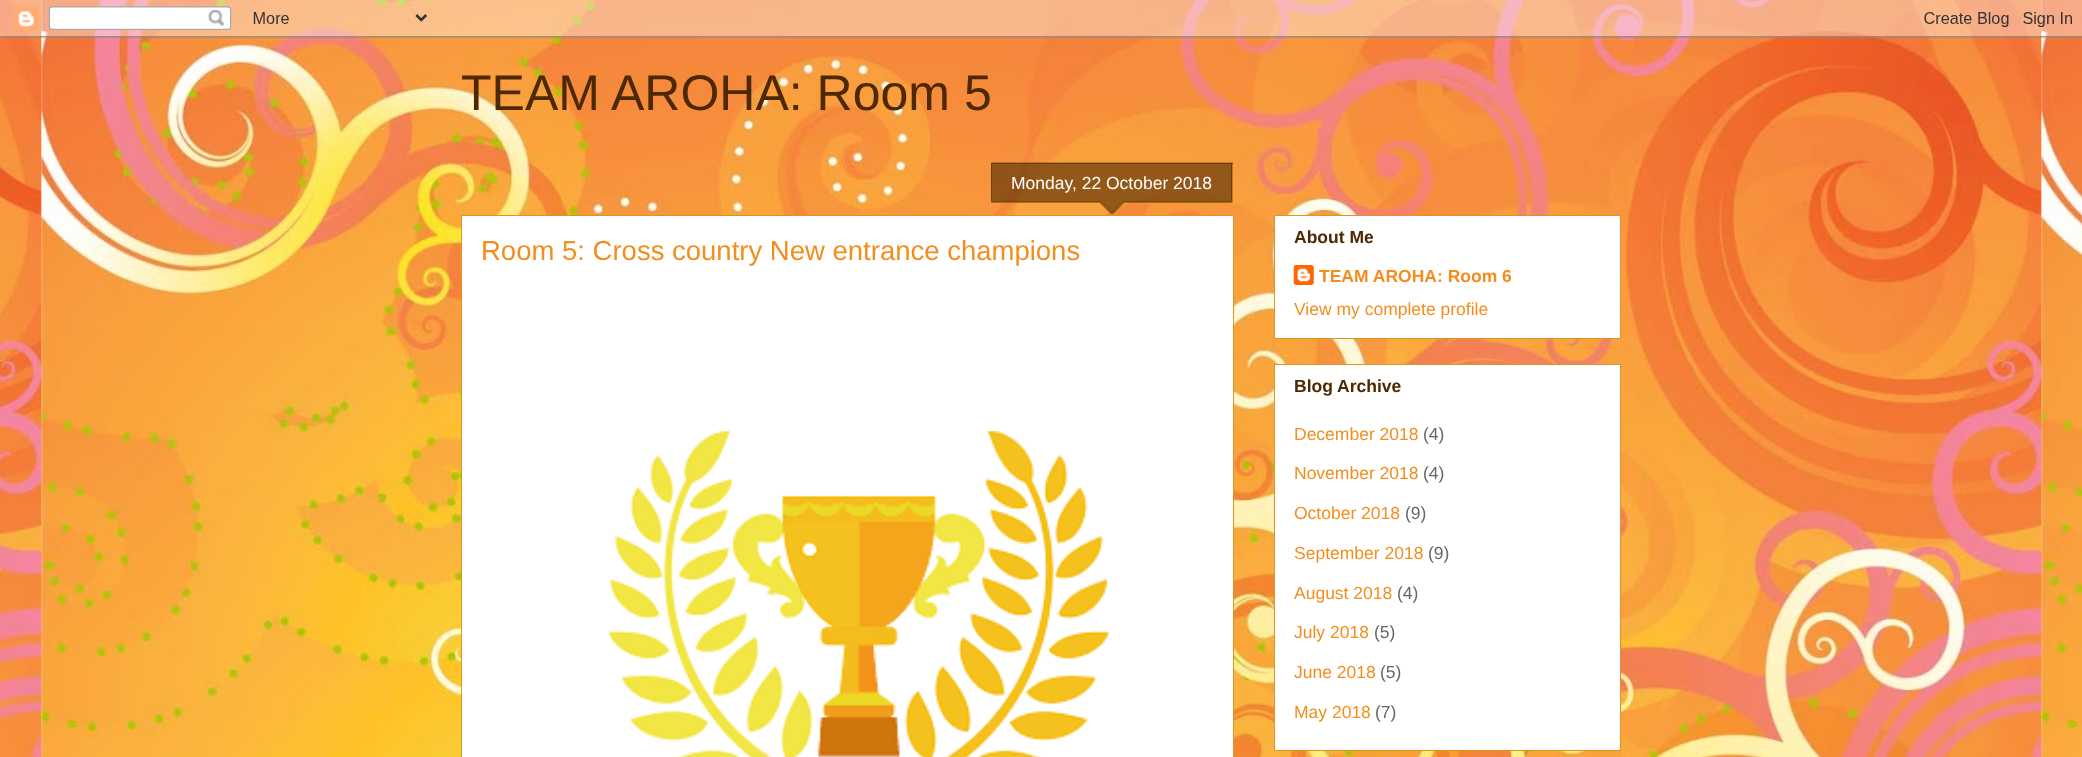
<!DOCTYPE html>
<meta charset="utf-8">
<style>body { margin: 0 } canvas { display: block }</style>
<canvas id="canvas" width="2082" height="757"></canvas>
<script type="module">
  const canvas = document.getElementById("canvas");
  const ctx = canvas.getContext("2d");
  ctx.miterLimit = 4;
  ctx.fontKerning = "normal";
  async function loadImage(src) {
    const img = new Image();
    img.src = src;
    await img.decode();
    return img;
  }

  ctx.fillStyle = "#ffffff";
  ctx.fillRect(0, 0, 2082, 757);
  ctx.drawImage(await loadImage("img1.png"), 0, 0, 2082, 757);
  ctx.drawImage(await loadImage("img2.png"), 0, 0, 2082, 38);
  ctx.font = "50px Liberation Sans";
  ctx.fillStyle = "#4e2800";
  ctx.fillText("TEAM AROHA: Room 5", 461, 110);
  ctx.fillStyle = "#ffffff";
  ctx.beginPath();
  ctx.rect(461.5, 215.5, 772, 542);
  ctx.fill();
  ctx.strokeStyle = "#dc9522";
  ctx.stroke();
  ctx.drawImage(await loadImage("img3.png"), 991, 162, 242, 52);
  ctx.fillStyle = "#664400";
  ctx.fillRect(991, 163, 242, 1);
  ctx.fillRect(1231, 164, 1, 37);
  ctx.fillRect(991, 164, 1, 37);
  ctx.font = "17.5px Liberation Sans";
  ctx.fillStyle = "#ffffff";
  ctx.fillText("Monday, 22 October 2018", 1011, 189);
  ctx.font = "27.5px Liberation Sans";
  ctx.fillStyle = "#f48d1d";
  ctx.fillText("Room 5: Cross country New entrance champions", 481, 260);
  ctx.drawImage(await loadImage("img4.png"), 608, 431, 501, 326);
  ctx.fillStyle = "#ffffff";
  ctx.beginPath();
  ctx.rect(1274.5, 215.5, 346, 123);
  ctx.fill();
  ctx.stroke();
  ctx.font = "bold 17.5px Liberation Sans";
  ctx.fillStyle = "#4e2800";
  ctx.fillText("About Me", 1294, 243);
  ctx.drawImage(await loadImage("img5.png"), 1293, 265, 21, 20);
  ctx.fillStyle = "#f48d1d";
  ctx.fillText("TEAM AROHA: Room 6", 1319, 282);
  ctx.font = "17.5px Liberation Sans";
  ctx.fillText("View my complete profile", 1294, 315);
  ctx.fillStyle = "#ffffff";
  ctx.beginPath();
  ctx.rect(1274.5, 364.5, 346, 386);
  ctx.fill();
  ctx.stroke();
  ctx.font = "bold 17.5px Liberation Sans";
  ctx.fillStyle = "#4e2800";
  ctx.fillText("Blog Archive", 1294, 392);
  ctx.font = "17.5px Liberation Sans";
  ctx.fillStyle = "#f48d1d";
  ctx.fillText("December 2018", 1294, 440);
  ctx.fillStyle = "#666666";
  ctx.fillText("(4)", 1423, 440);
  ctx.fillStyle = "#f48d1d";
  ctx.fillText("November 2018", 1294, 479);
  ctx.fillStyle = "#666666";
  ctx.fillText("(4)", 1423, 479);
  ctx.fillStyle = "#f48d1d";
  ctx.fillText("October 2018", 1294, 519);
  ctx.fillStyle = "#666666";
  ctx.fillText("(9)", 1405, 519);
  ctx.fillStyle = "#f48d1d";
  ctx.fillText("September 2018", 1294, 559);
  ctx.fillStyle = "#666666";
  ctx.fillText("(9)", 1428, 559);
  ctx.fillStyle = "#f48d1d";
  ctx.fillText("August 2018", 1294, 599);
  ctx.fillStyle = "#666666";
  ctx.fillText("(4)", 1397, 599);
  ctx.fillStyle = "#f48d1d";
  ctx.fillText("July 2018", 1294, 638);
  ctx.fillStyle = "#666666";
  ctx.fillText("(5)", 1374, 638);
  ctx.fillStyle = "#f48d1d";
  ctx.fillText("June 2018", 1294, 678);
  ctx.fillStyle = "#666666";
  ctx.fillText("(5)", 1380, 678);
  ctx.fillStyle = "#f48d1d";
  ctx.fillText("May 2018", 1294, 718);
  ctx.fillStyle = "#666666";
  ctx.fillText("(7)", 1375, 718);
</script>
